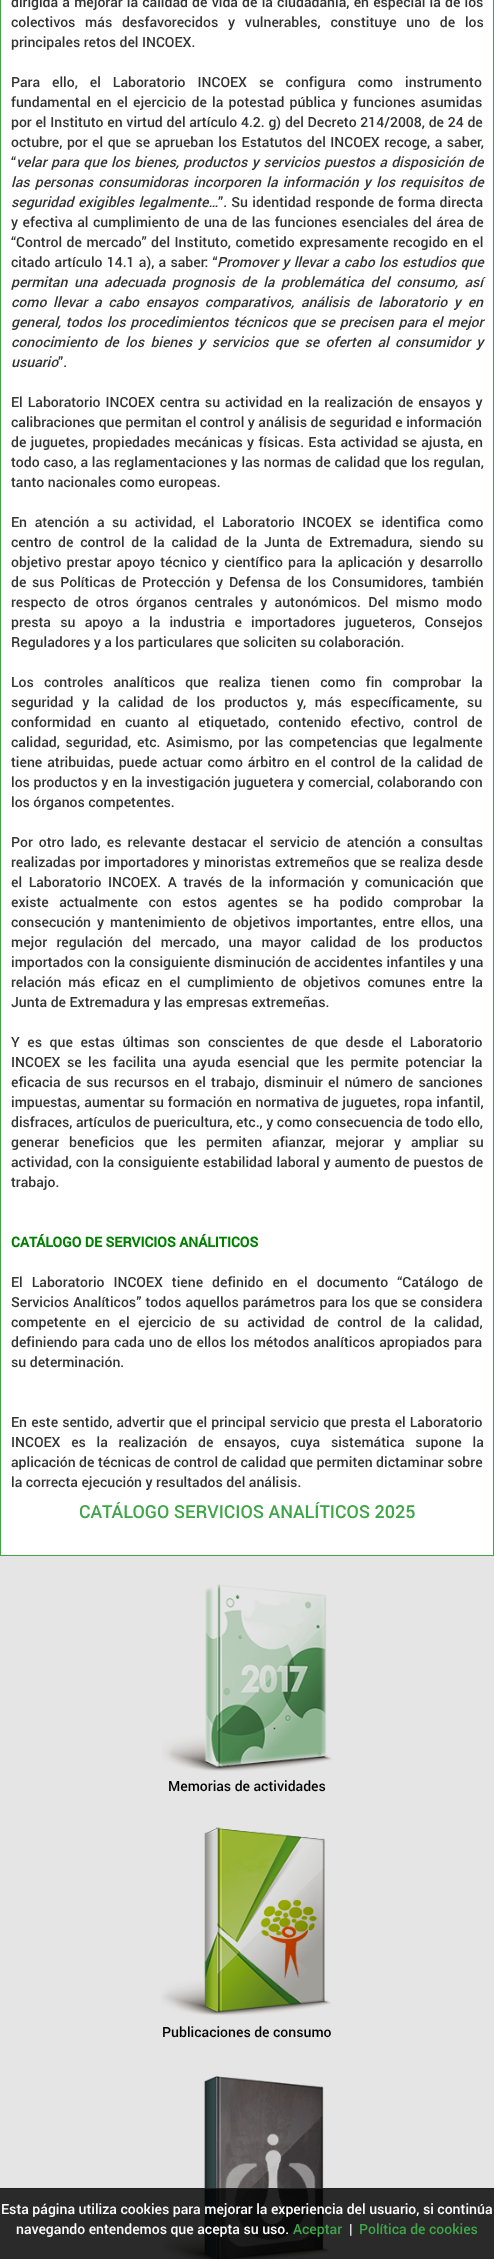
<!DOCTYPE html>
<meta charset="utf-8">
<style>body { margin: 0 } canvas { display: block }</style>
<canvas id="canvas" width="494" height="2259"></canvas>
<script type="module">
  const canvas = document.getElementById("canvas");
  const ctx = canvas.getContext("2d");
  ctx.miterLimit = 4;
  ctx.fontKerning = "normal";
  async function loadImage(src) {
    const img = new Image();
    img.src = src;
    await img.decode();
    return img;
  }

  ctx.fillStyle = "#ffffff";
  ctx.fillRect(0, 0, 494, 2259);
  ctx.strokeStyle = "#43a347";
  ctx.strokeRect(0.5, -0.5, 493, 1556);
  ctx.wordSpacing = "0.7px";
  ctx.font = "500 14px Roboto";
  ctx.fillStyle = "#333333";
  ctx.fillText("dirigida a mejorar la calidad de vida de la ciudadanía, en especial la de los", 11, 7);
  ctx.wordSpacing = "6.25px";
  ctx.fillText("colectivos más desfavorecidos y vulnerables, constituye uno de los", 11, 27);
  ctx.wordSpacing = "0px";
  ctx.fillText("principales retos del INCOEX.", 11, 47);
  ctx.wordSpacing = "8.5px";
  ctx.fillText("Para ello, el Laboratorio INCOEX se configura como instrumento", 11, 87);
  ctx.wordSpacing = "1.75px";
  ctx.fillText("fundamental en el ejercicio de la potestad pública y funciones asumidas", 11, 107);
  ctx.wordSpacing = "0.25px";
  ctx.fillText("por el Instituto en virtud del artículo 4.2. g) del Decreto 214/2008, de 24 de", 11, 127);
  ctx.wordSpacing = "1px";
  ctx.fillText("octubre, por el que se aprueban los Estatutos del INCOEX recoge, a saber,", 11, 147);
  ctx.wordSpacing = "0px";
  ctx.fillText("“", 11, 167);
  ctx.wordSpacing = "0.9px";
  ctx.font = "italic 500 14px Roboto";
  ctx.fillText("velar para que los bienes, productos y servicios puestos a disposición de", 16, 167);
  ctx.wordSpacing = "1.75px";
  ctx.fillText("las personas consumidoras incorporen la información y los requisitos de", 11, 187);
  ctx.wordSpacing = "1px";
  ctx.fillText("seguridad exigibles legalmente…", 11, 207);
  ctx.wordSpacing = "0.75px";
  ctx.font = "500 14px Roboto";
  ctx.fillText("”. Su identidad responde de forma directa", 218, 207);
  ctx.wordSpacing = "1px";
  ctx.fillText("y efectiva al cumplimiento de una de las funciones esenciales del área de", 11, 227);
  ctx.fillText("“Control de mercado” del Instituto, cometido expresamente recogido en el", 11, 247);
  ctx.wordSpacing = "0.75px";
  ctx.fillText("citado artículo 14.1 a), a saber: “", 11, 267);
  ctx.font = "italic 500 14px Roboto";
  ctx.fillText("Promover y llevar a cabo los estudios que", 217, 267);
  ctx.wordSpacing = "3.1px";
  ctx.fillText("permitan una adecuada prognosis de la problemática del consumo, así", 11, 287);
  ctx.wordSpacing = "3.25px";
  ctx.fillText("como llevar a cabo ensayos comparativos, análisis de laboratorio y en", 11, 307);
  ctx.wordSpacing = "1.4px";
  ctx.fillText("general, todos los procedimientos técnicos que se precisen para el mejor", 11, 327);
  ctx.wordSpacing = "2.9px";
  ctx.fillText("conocimiento de los bienes y servicios que se oferten al consumidor y", 11, 347);
  ctx.wordSpacing = "0px";
  ctx.fillText("usuario", 11, 367);
  ctx.font = "500 14px Roboto";
  ctx.fillText("”.", 58, 367);
  ctx.wordSpacing = "1.5px";
  ctx.fillText("El Laboratorio INCOEX centra su actividad en la realización de ensayos y", 11, 407);
  ctx.wordSpacing = "0px";
  ctx.fillText("calibraciones que permitan el control y análisis de seguridad e información", 11, 427);
  ctx.wordSpacing = "0.75px";
  ctx.fillText("de juguetes, propiedades mecánicas y físicas. Esta actividad se ajusta, en", 11, 447);
  ctx.wordSpacing = "0.25px";
  ctx.fillText("todo caso, a las reglamentaciones y las normas de calidad que los regulan,", 11, 467);
  ctx.wordSpacing = "0px";
  ctx.fillText("tanto nacionales como europeas.", 11, 487);
  ctx.wordSpacing = "4.1px";
  ctx.fillText("En atención a su actividad, el Laboratorio INCOEX se identifica como", 11, 527);
  ctx.wordSpacing = "3.25px";
  ctx.fillText("centro de control de la calidad de la Junta de Extremadura, siendo su", 11, 547);
  ctx.wordSpacing = "1.75px";
  ctx.fillText("objetivo prestar apoyo técnico y científico para la aplicación y desarrollo", 11, 567);
  ctx.wordSpacing = "2.25px";
  ctx.fillText("de sus Políticas de Protección y Defensa de los Consumidores, también", 11, 587);
  ctx.wordSpacing = "3.75px";
  ctx.fillText("respecto de otros órganos centrales y autonómicos. Del mismo modo", 11, 607);
  ctx.wordSpacing = "5.75px";
  ctx.fillText("presta su apoyo a la industria e importadores jugueteros, Consejos", 11, 627);
  ctx.wordSpacing = "0px";
  ctx.fillText("Reguladores y a los particulares que soliciten su colaboración.", 11, 647);
  ctx.wordSpacing = "6.75px";
  ctx.fillText("Los controles analíticos que realiza tienen como fin comprobar la", 11, 687);
  ctx.wordSpacing = "5.25px";
  ctx.fillText("seguridad y la calidad de los productos y, más específicamente, su", 11, 707);
  ctx.wordSpacing = "5.75px";
  ctx.fillText("conformidad en cuanto al etiquetado, contenido efectivo, control de", 11, 727);
  ctx.wordSpacing = "2.25px";
  ctx.fillText("calidad, seguridad, etc. Asimismo, por las competencias que legalmente", 11, 747);
  ctx.wordSpacing = "1.5px";
  ctx.fillText("tiene atribuidas, puede actuar como árbitro en el control de la calidad de", 11, 767);
  ctx.wordSpacing = "0.25px";
  ctx.fillText("los productos y en la investigación juguetera y comercial, colaborando con", 11, 787);
  ctx.wordSpacing = "0px";
  ctx.fillText("los órganos competentes.", 11, 807);
  ctx.wordSpacing = "2.6px";
  ctx.fillText("Por otro lado, es relevante destacar el servicio de atención a consultas", 11, 847);
  ctx.wordSpacing = "0.5px";
  ctx.fillText("realizadas por importadores y minoristas extremeños que se realiza desde", 11, 867);
  ctx.wordSpacing = "3.1px";
  ctx.fillText("el Laboratorio INCOEX. A través de la información y comunicación que", 11, 887);
  ctx.wordSpacing = "7px";
  ctx.fillText("existe actualmente con estos agentes se ha podido comprobar la", 11, 907);
  ctx.wordSpacing = "2.5px";
  ctx.fillText("consecución y mantenimiento de objetivos importantes, entre ellos, una", 11, 927);
  ctx.wordSpacing = "6px";
  ctx.fillText("mejor regulación del mercado, una mayor calidad de los productos", 11, 947);
  ctx.wordSpacing = "0.25px";
  ctx.fillText("importados con la consiguiente disminución de accidentes infantiles y una", 11, 967);
  ctx.wordSpacing = "3.4px";
  ctx.fillText("relación más eficaz en el cumplimiento de objetivos comunes entre la", 11, 987);
  ctx.wordSpacing = "0px";
  ctx.fillText("Junta de Extremadura y las empresas extremeñas.", 11, 1007);
  ctx.wordSpacing = "4.1px";
  ctx.fillText("Y es que estas últimas son conscientes de que desde el Laboratorio", 11, 1047);
  ctx.wordSpacing = "3px";
  ctx.fillText("INCOEX se les facilita una ayuda esencial que les permite potenciar la", 11, 1067);
  ctx.wordSpacing = "1.75px";
  ctx.fillText("eficacia de sus recursos en el trabajo, disminuir el número de sanciones", 11, 1087);
  ctx.wordSpacing = "0.5px";
  ctx.fillText("impuestas, aumentar su formación en normativa de juguetes, ropa infantil,", 11, 1107);
  ctx.wordSpacing = "0px";
  ctx.fillText("disfraces, artículos de puericultura, etc., y como consecuencia de todo ello,", 11, 1127);
  ctx.wordSpacing = "6.5px";
  ctx.fillText("generar beneficios que les permiten afianzar, mejorar y ampliar su", 11, 1147);
  ctx.wordSpacing = "0.4px";
  ctx.fillText("actividad, con la consiguiente estabilidad laboral y aumento de puestos de", 11, 1167);
  ctx.wordSpacing = "0px";
  ctx.fillText("trabajo.", 11, 1187);
  ctx.font = "bold 14px Roboto";
  ctx.fillStyle = "#008000";
  ctx.fillText("CATÁLOGO DE SERVICIOS ANÁLITICOS", 11, 1247);
  ctx.wordSpacing = "5.5px";
  ctx.font = "500 14px Roboto";
  ctx.fillStyle = "#333333";
  ctx.fillText("El Laboratorio INCOEX tiene definido en el documento “Catálogo de", 11, 1287);
  ctx.wordSpacing = "0.6px";
  ctx.fillText("Servicios Analíticos” todos aquellos parámetros para los que se considera", 11, 1307);
  ctx.wordSpacing = "5px";
  ctx.fillText("competente en el ejercicio de su actividad de control de la calidad,", 11, 1327);
  ctx.wordSpacing = "0.75px";
  ctx.fillText("definiendo para cada uno de ellos los métodos analíticos apropiados para", 11, 1347);
  ctx.wordSpacing = "0px";
  ctx.fillText("su determinación.", 11, 1367);
  ctx.wordSpacing = "0.6px";
  ctx.fillText("En este sentido, advertir que el principal servicio que presta el Laboratorio", 11, 1427);
  ctx.wordSpacing = "7.25px";
  ctx.fillText("INCOEX es la realización de ensayos, cuya sistemática supone la", 11, 1447);
  ctx.wordSpacing = "0px";
  ctx.fillText("aplicación de técnicas de control de calidad que permiten dictaminar sobre", 11, 1467);
  ctx.fillText("la correcta ejecución y resultados del análisis.", 11, 1487);
  ctx.font = "500 18px Roboto";
  ctx.fillStyle = "#3fa549";
  ctx.fillText("CATÁLOGO SERVICIOS ANALÍTICOS 2025", 79, 1518);
  ctx.fillStyle = "#e5e5e5";
  ctx.fillRect(0, 1556, 494, 703);
  ctx.drawImage(await loadImage("img1.png"), 162, 1584, 170, 188);
  ctx.font = "500 14px Roboto";
  ctx.fillStyle = "#000000";
  ctx.fillText("Memorias de actividades", 168, 1791);
  ctx.drawImage(await loadImage("img2.png"), 161, 1827, 170, 189);
  ctx.fillText("Publicaciones de consumo", 162, 2037);
  ctx.drawImage(await loadImage("img3.png"), 162, 2076, 168, 183);
  ctx.fillStyle = "rgba(0, 0, 0, 0.82)";
  ctx.fillRect(0, 2189, 494, 70);
  ctx.fillStyle = "#202020";
  ctx.fillRect(0, 2188, 494, 1);
  ctx.fillStyle = "#ffffff";
  ctx.fillText("Esta página utiliza cookies para mejorar la experiencia del usuario, si continúa", 1, 2214);
  ctx.fillText("navegando entendemos que acepta su uso.", 16, 2234);
  ctx.fillStyle = "#3fa549";
  ctx.fillText("Aceptar", 293, 2234);
  ctx.fillStyle = "#ffffff";
  ctx.fillText("|", 349, 2234);
  ctx.fillStyle = "#3fa549";
  ctx.fillText("Política de cookies", 359, 2234);
</script>
